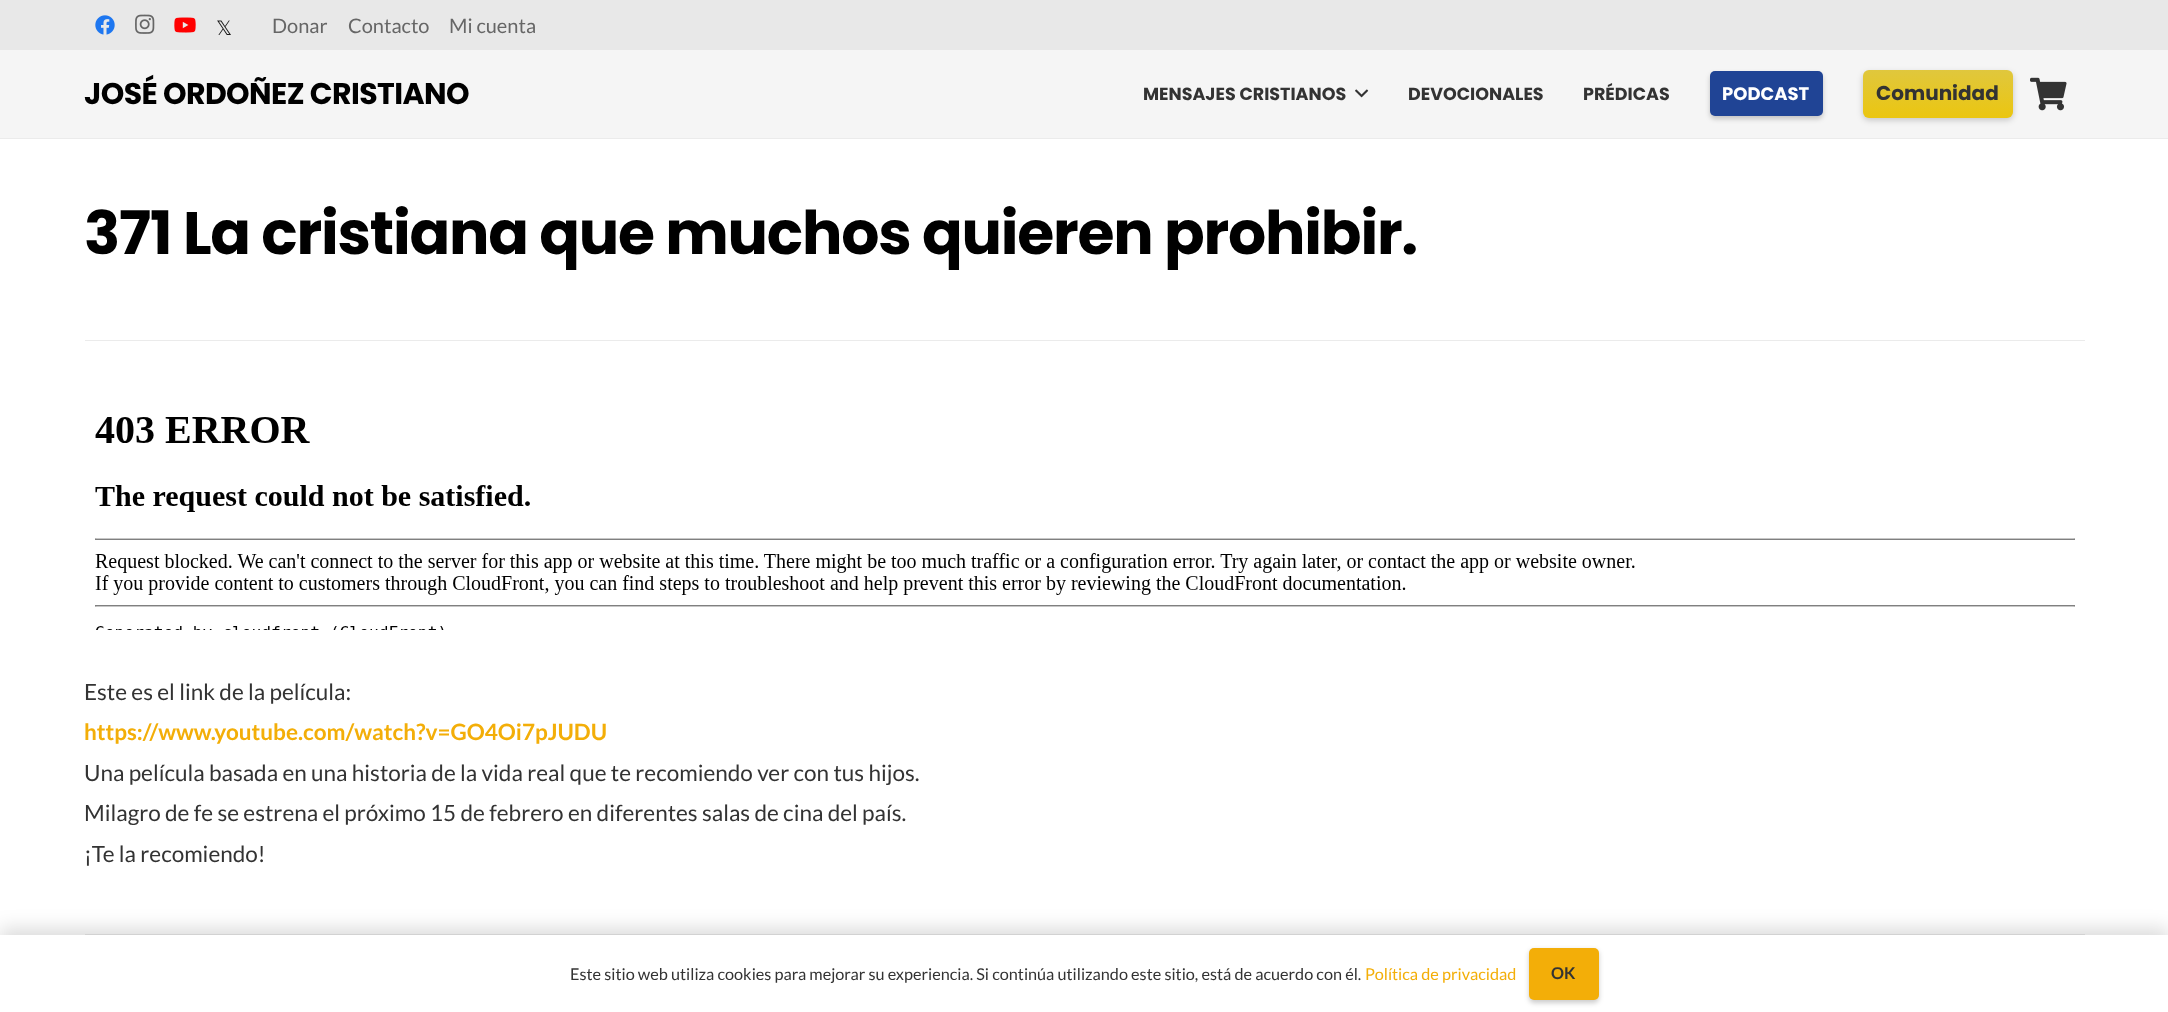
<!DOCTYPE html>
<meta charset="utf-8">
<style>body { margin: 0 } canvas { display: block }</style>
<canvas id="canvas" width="2168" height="1012"></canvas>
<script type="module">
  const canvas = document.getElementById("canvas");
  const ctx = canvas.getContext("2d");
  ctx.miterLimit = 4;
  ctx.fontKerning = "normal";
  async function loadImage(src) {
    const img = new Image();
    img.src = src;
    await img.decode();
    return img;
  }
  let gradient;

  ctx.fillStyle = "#ffffff";
  ctx.fillRect(0, 0, 2168, 1012);
  ctx.fillStyle = "#e8e8e8";
  ctx.fillRect(0, 0, 2168, 50);
  ctx.drawImage(await loadImage("img1.png"), 95, 15, 20, 20);
  ctx.drawImage(await loadImage("img2.png"), 135, 14, 20, 20);
  ctx.drawImage(await loadImage("img3.png"), 174, 17, 22, 16);
  ctx.font = "20px DejaVu Sans";
  ctx.fillStyle = "#1a1a1a";
  ctx.fillText("𝕏", 216, 35);
  ctx.font = "20px Lato";
  ctx.fillStyle = "#666666";
  ctx.fillText("Donar", 272, 33);
  ctx.fillText("Contacto", 348, 33);
  ctx.fillText("Mi cuenta", 449, 33);
  ctx.fillStyle = "#ebebeb";
  ctx.beginPath();
  ctx.moveTo(0, 138);
  ctx.lineTo(0, 139);
  ctx.lineTo(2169, 139);
  ctx.lineTo(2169, 51);
  ctx.lineTo(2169, 138);
  ctx.closePath();
  ctx.fill();
  ctx.fillStyle = "#f5f5f5";
  ctx.fillRect(0, 50, 2168, 88);
  ctx.letterSpacing = "-0.6px";
  ctx.font = "bold 30px Poppins";
  ctx.fillStyle = "#000000";
  ctx.fillText("JOSÉ ORDOÑEZ CRISTIANO", 84, 104);
  ctx.letterSpacing = "0px";
  ctx.font = "bold 17.5px Poppins";
  ctx.fillStyle = "#333333";
  ctx.fillText("MENSAJES CRISTIANOS", 1143, 100);
  ctx.drawImage(await loadImage("img4.png"), 1355, 89, 14, 9);
  ctx.fillText("DEVOCIONALES", 1408, 100);
  ctx.fillText("PRÉDICAS", 1583, 100);
  ctx.fillStyle = "rgba(0, 0, 0, 0.2)";
  ctx.filter = "blur(2.5px)";
  ctx.beginPath();
  ctx.roundRect(1710, 74, 113, 45, 5);
  ctx.fill();
  ctx.filter = "none";
  ctx.fillStyle = "#204495";
  ctx.beginPath();
  ctx.roundRect(1710, 71, 113, 45, 5);
  ctx.fill();
  ctx.font = "bold 18px Poppins";
  ctx.fillStyle = "#ffffff";
  ctx.fillText("PODCAST", 1722, 100);
  ctx.fillStyle = "rgba(0, 0, 0, 0.2)";
  ctx.filter = "blur(3px)";
  ctx.beginPath();
  ctx.roundRect(1863, 73, 150, 47, 6);
  ctx.fill();
  ctx.filter = "none";
  gradient = ctx.createLinearGradient(1938, 70, 1938, 118);
  gradient.addColorStop(0, "#e0c73d");
  gradient.addColorStop(1, "#ebc610");
  ctx.fillStyle = gradient;
  ctx.beginPath();
  ctx.roundRect(1863, 70, 150, 48, 6);
  ctx.fill();
  ctx.font = "bold 20px Poppins";
  ctx.fillStyle = "#333333";
  ctx.fillText("Comunidad", 1876, 100);
  ctx.drawImage(await loadImage("img5.png"), 2030, 77, 37, 34);
  ctx.letterSpacing = "-1.2px";
  ctx.font = "bold 60px Poppins";
  ctx.fillStyle = "#000000";
  ctx.fillText("371 La cristiana que muchos quieren prohibir.", 84, 254);
  ctx.fillStyle = "#ebebeb";
  ctx.fillRect(85, 340, 2000, 1);
  ctx.drawImage(await loadImage("img6.png"), 95, 417, 1980, 213);
  ctx.letterSpacing = "0px";
  ctx.font = "22.5px Lato";
  ctx.fillStyle = "#333333";
  ctx.fillText("Este es el link de la película:", 84, 700);
  ctx.font = "bold 22.5px Lato";
  ctx.fillStyle = "#f3ae08";
  ctx.fillText("https://www.youtube.com/watch?v=GO4Oi7pJUDU", 84, 740);
  ctx.font = "22.5px Lato";
  ctx.fillStyle = "#333333";
  ctx.fillText("Una película basada en una historia de la vida real que te recomiendo ver con tus hijos.", 84, 781);
  ctx.fillText("Milagro de fe se estrena el próximo 15 de febrero en diferentes salas de cina del país.", 84, 821);
  ctx.fillText("¡Te la recomiendo!", 84, 862);
  ctx.fillStyle = "#ebebeb";
  ctx.fillRect(85, 934, 2000, 1);
  ctx.fillStyle = "rgba(0, 0, 0, 0.15)";
  ctx.filter = "blur(9.5px)";
  ctx.beginPath();
  ctx.rect(0, 929, 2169, 77);
  ctx.fill();
  ctx.filter = "none";
  ctx.fillStyle = "#ffffff";
  ctx.fillRect(0, 935, 2168, 77);
  ctx.font = "16.25px Lato";
  ctx.fillStyle = "#333333";
  ctx.fillText("Este sitio web utiliza cookies para mejorar su experiencia. Si continúa utilizando este sitio, está de acuerdo con él.", 570, 980);
  ctx.fillStyle = "#f3ae08";
  ctx.fillText("Política de privacidad", 1365, 980);
  ctx.fillStyle = "rgba(0, 0, 0, 0.2)";
  ctx.filter = "blur(2.5px)";
  ctx.beginPath();
  ctx.roundRect(1529, 950, 70, 53, 5);
  ctx.fill();
  ctx.filter = "none";
  ctx.fillStyle = "#f3ae08";
  ctx.beginPath();
  ctx.roundRect(1529, 948, 70, 52, 5);
  ctx.fill();
  ctx.font = "bold 16.25px Lato";
  ctx.fillStyle = "#333333";
  ctx.fillText("OK", 1551, 979);
</script>
